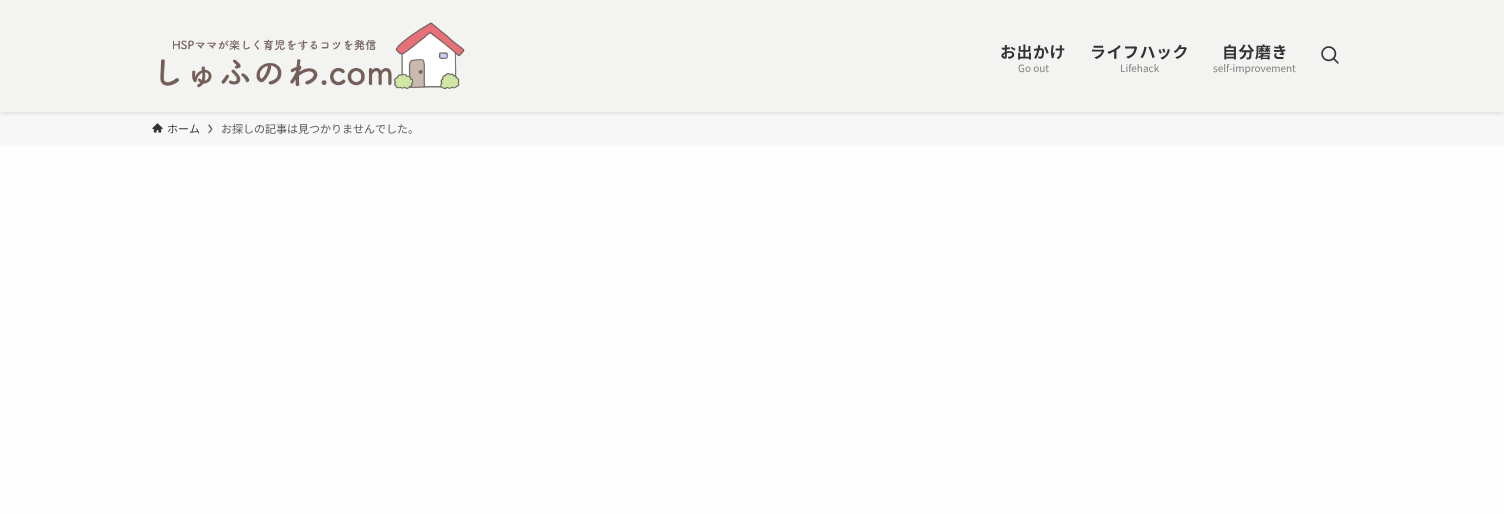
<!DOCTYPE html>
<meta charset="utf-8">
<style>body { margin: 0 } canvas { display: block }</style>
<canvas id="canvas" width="1504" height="514"></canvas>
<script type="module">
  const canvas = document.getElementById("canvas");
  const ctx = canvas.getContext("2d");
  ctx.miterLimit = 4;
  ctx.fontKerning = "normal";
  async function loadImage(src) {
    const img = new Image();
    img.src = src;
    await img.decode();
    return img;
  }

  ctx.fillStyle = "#fdfdfd";
  ctx.fillRect(0, 0, 1504, 514);
  ctx.fillStyle = "#f7f7f7";
  ctx.fillRect(0, 112, 1504, 34);
  ctx.fillStyle = "rgba(0, 0, 0, 0.12)";
  ctx.filter = "blur(2px)";
  ctx.beginPath();
  ctx.rect(0, 1, 1504, 112);
  ctx.fill();
  ctx.filter = "none";
  ctx.fillStyle = "#f3f3f2";
  ctx.fillRect(0, 0, 1504, 112);
  ctx.drawImage(await loadImage("img1.png"), 160, 22, 305, 68);
  ctx.letterSpacing = "0.5px";
  ctx.font = "bold 16px Noto Sans JP";
  ctx.fillStyle = "#333333";
  ctx.fillText("お出かけ", 1000, 58);
  ctx.letterSpacing = "0px";
  ctx.font = "10px Noto Sans JP";
  ctx.fillStyle = "#80807f";
  ctx.fillText("Go out", 1018, 72);
  ctx.letterSpacing = "0.5px";
  ctx.font = "bold 16px Noto Sans JP";
  ctx.fillStyle = "#333333";
  ctx.fillText("ライフハック", 1090, 58);
  ctx.letterSpacing = "0px";
  ctx.font = "10px Noto Sans JP";
  ctx.fillStyle = "#80807f";
  ctx.fillText("Lifehack", 1120, 72);
  ctx.letterSpacing = "0.5px";
  ctx.font = "bold 16px Noto Sans JP";
  ctx.fillStyle = "#333333";
  ctx.fillText("自分磨き", 1222, 58);
  ctx.letterSpacing = "0px";
  ctx.font = "10px Noto Sans JP";
  ctx.fillStyle = "#80807f";
  ctx.fillText("self-improvement", 1213, 72);
  ctx.drawImage(await loadImage("img2.png"), 1321, 46, 18, 18);
  ctx.drawImage(await loadImage("img3.png"), 152, 123, 11, 10);
  ctx.font = "11px Noto Sans JP";
  ctx.fillStyle = "#333333";
  ctx.fillText("ホーム", 167, 133);
  ctx.fillStyle = "#5a5a5a";
  ctx.beginPath();
  ctx.moveTo(209.5, 124.5);
  ctx.lineTo(208, 125);
  ctx.lineTo(211, 129);
  ctx.lineTo(208, 133);
  ctx.lineTo(209.5, 133);
  ctx.lineTo(212.5, 129);
  ctx.closePath();
  ctx.fill();
  ctx.fillText("お探しの記事は見つかりませんでした。", 221, 133);
</script>
